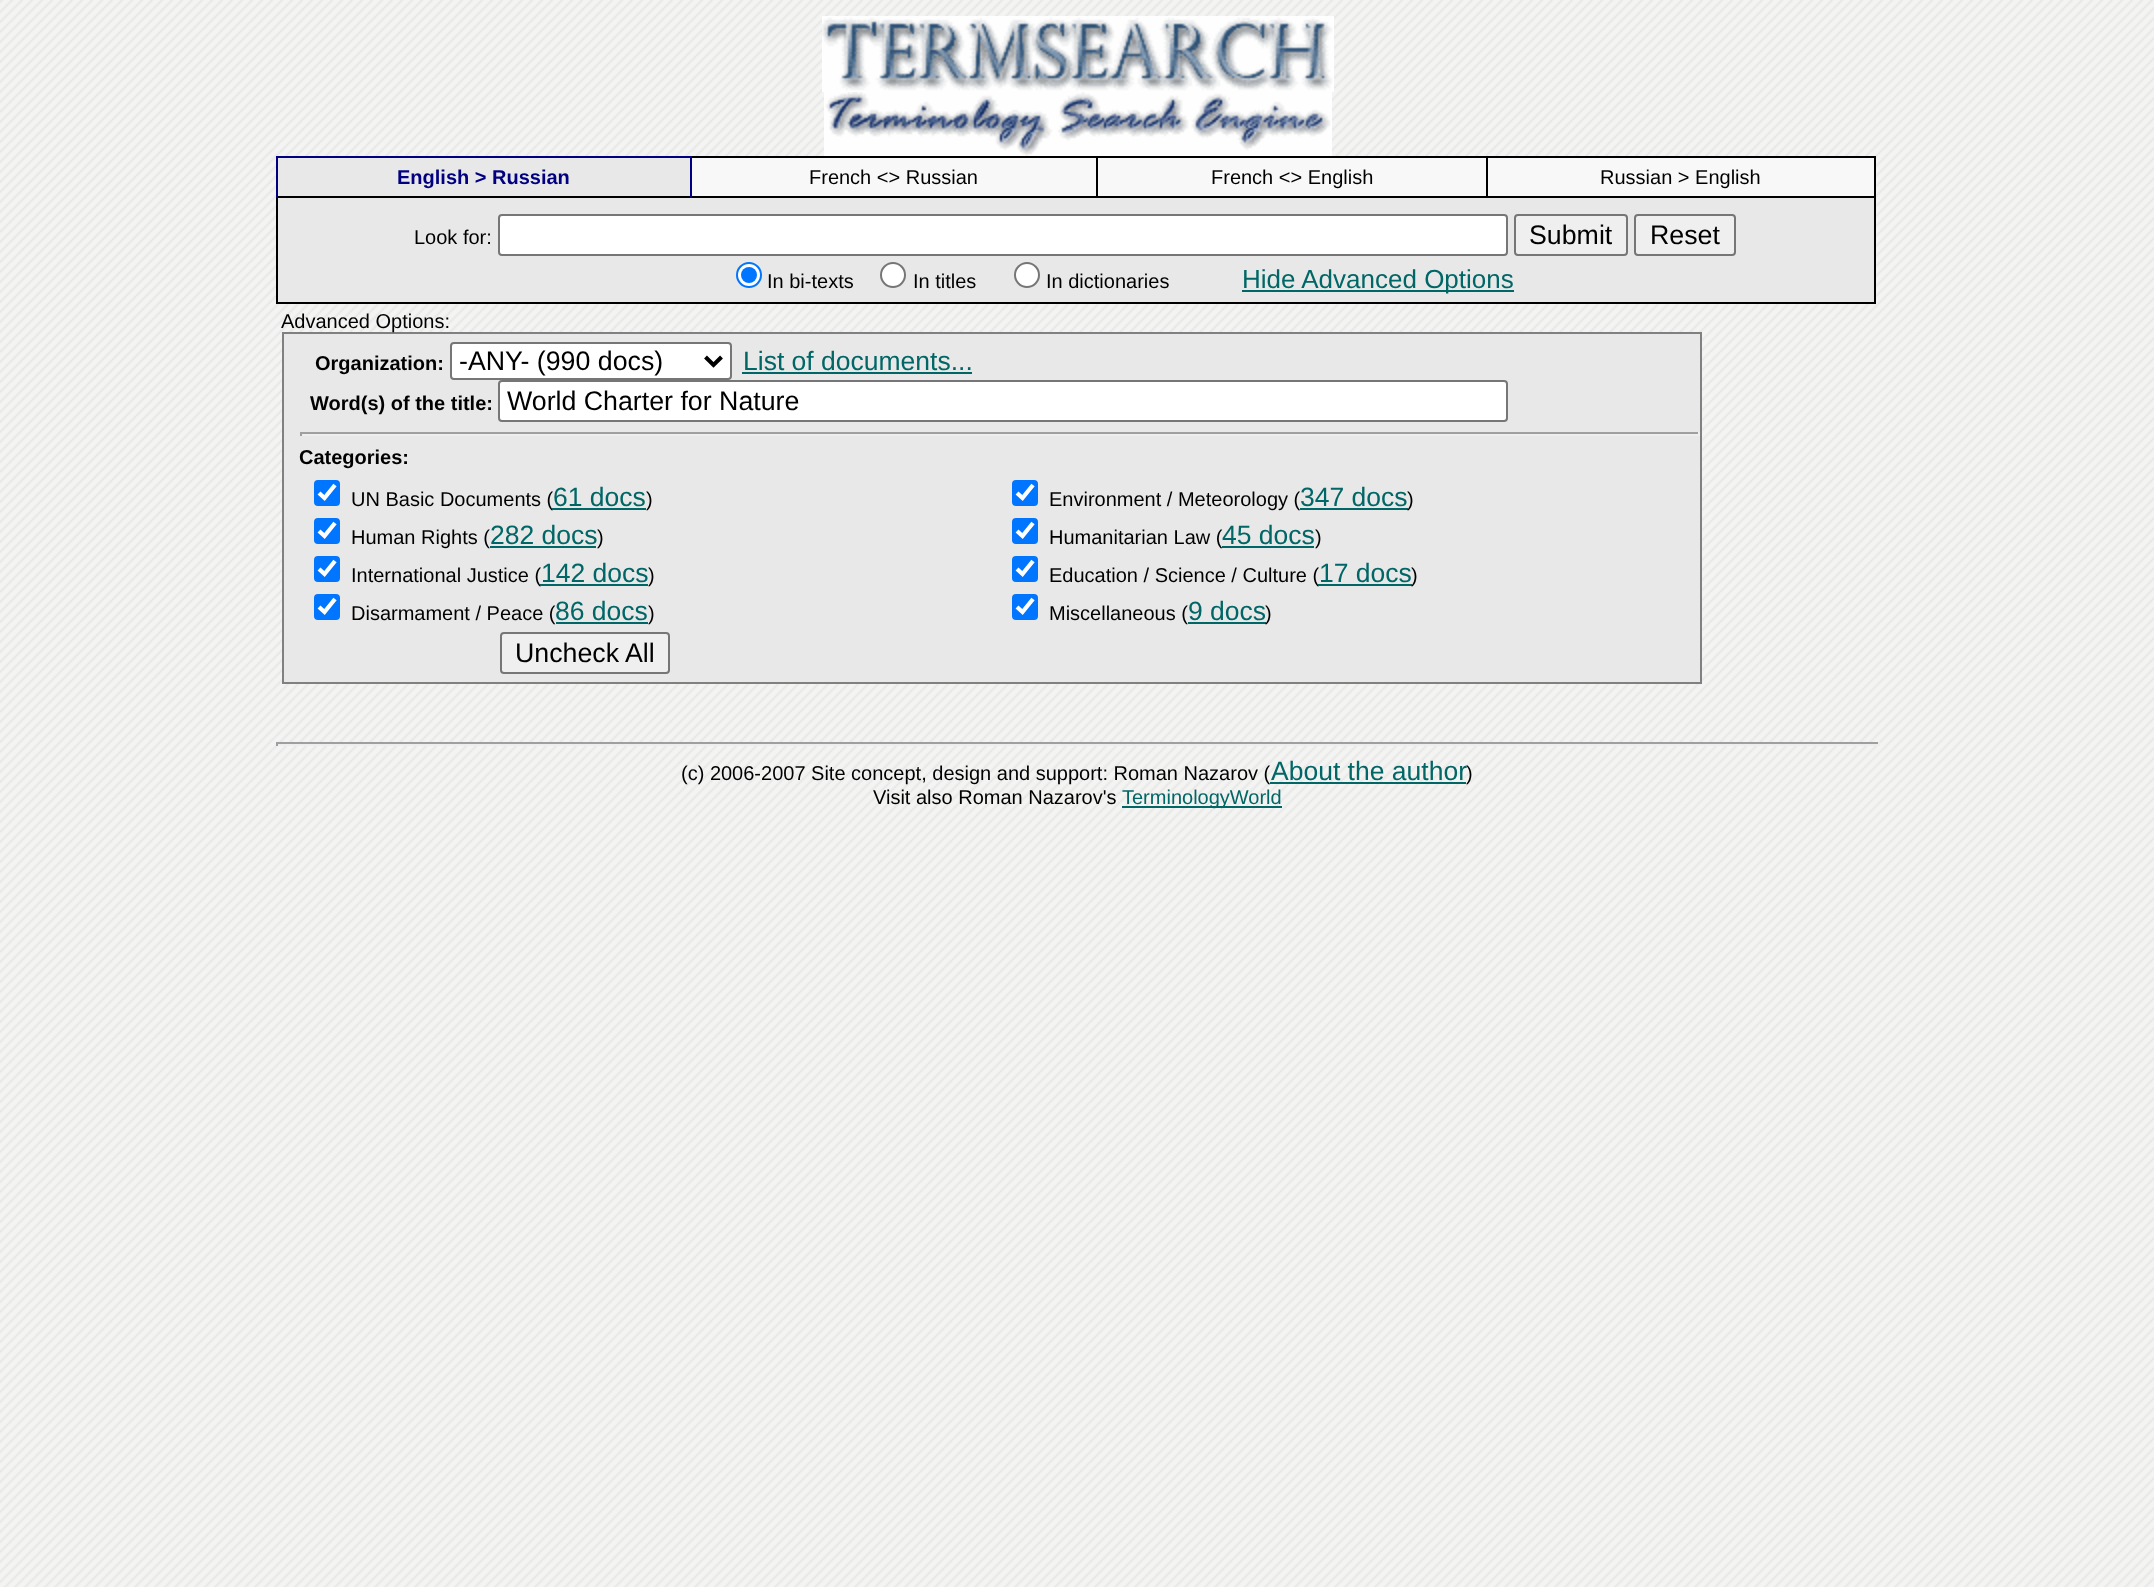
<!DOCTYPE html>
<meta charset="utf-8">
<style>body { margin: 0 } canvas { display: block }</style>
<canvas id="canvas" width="2154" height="1587"></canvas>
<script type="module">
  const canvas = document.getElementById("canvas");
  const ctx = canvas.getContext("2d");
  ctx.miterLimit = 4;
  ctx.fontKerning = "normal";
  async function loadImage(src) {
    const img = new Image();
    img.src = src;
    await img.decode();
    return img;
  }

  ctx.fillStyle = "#ffffff";
  ctx.fillRect(0, 0, 2154, 1587);
  ctx.drawImage(await loadImage("img1.png"), 0, 0, 2154, 1587);
  ctx.drawImage(await loadImage("img2.png"), 822, 16, 512, 76);
  ctx.drawImage(await loadImage("img3.png"), 824, 92, 508, 64);
  ctx.fillStyle = "#e8e8e8";
  ctx.fillRect(278, 158, 1596, 144);
  ctx.fillStyle = "#000000";
  ctx.fillRect(1486, 156, 390, 2);
  ctx.fillRect(276, 196, 1600, 2);
  ctx.fillRect(1486, 156, 2, 42);
  ctx.fillRect(1096, 156, 392, 2);
  ctx.fillRect(1096, 156, 2, 42);
  ctx.fillRect(690, 156, 408, 2);
  ctx.fillStyle = "#000080";
  ctx.fillRect(276, 156, 416, 2);
  ctx.fillRect(690, 156, 2, 42);
  ctx.fillStyle = "#000000";
  ctx.fillRect(1874, 196, 2, 108);
  ctx.fillRect(276, 302, 1600, 2);
  ctx.fillRect(276, 196, 2, 108);
  ctx.fillStyle = "#000080";
  ctx.fillRect(276, 156, 2, 42);
  ctx.font = "bold 20px Liberation Sans";
  ctx.fillText("English > Russian", 397, 184);
  ctx.fillStyle = "#f8f8f8";
  ctx.fillRect(692, 158, 404, 38);
  ctx.font = "20px Liberation Sans";
  ctx.fillStyle = "#000000";
  ctx.fillText("French <> Russian", 809, 184);
  ctx.fillStyle = "#f8f8f8";
  ctx.fillRect(1098, 158, 388, 38);
  ctx.fillStyle = "#000000";
  ctx.fillText("French <> English", 1211, 184);
  ctx.fillStyle = "#f8f8f8";
  ctx.fillRect(1488, 158, 386, 38);
  ctx.fillStyle = "#000000";
  ctx.fillRect(1874, 156, 2, 42);
  ctx.fillText("Russian > English", 1600, 184);
  ctx.fillText("Look for:", 414, 244);
  ctx.fillStyle = "#ffffff";
  ctx.beginPath();
  ctx.roundRect(499, 215, 1008, 40, 3);
  ctx.fill();
  ctx.strokeStyle = "#767676";
  ctx.lineWidth = 2;
  ctx.stroke();
  ctx.fillStyle = "#efefef";
  ctx.beginPath();
  ctx.roundRect(1515, 215, 112, 40, 3);
  ctx.fill();
  ctx.stroke();
  ctx.font = "26.75px Liberation Sans";
  ctx.fillStyle = "#000000";
  ctx.fillText("Submit", 1529, 244);
  ctx.fillStyle = "#efefef";
  ctx.beginPath();
  ctx.roundRect(1635, 215, 100, 40, 3);
  ctx.fill();
  ctx.stroke();
  ctx.fillStyle = "#000000";
  ctx.fillText("Reset", 1650, 244);
  ctx.fillStyle = "#ffffff";
  ctx.beginPath();
  ctx.arc(749, 275, 12, 0, Math.PI * 2);
  ctx.fill();
  ctx.strokeStyle = "#0075ff";
  ctx.stroke();
  ctx.fillStyle = "#0075ff";
  ctx.beginPath();
  ctx.arc(749, 275, 8, 0, Math.PI * 2);
  ctx.fill();
  ctx.font = "20px Liberation Sans";
  ctx.fillStyle = "#000000";
  ctx.fillText("In bi-texts", 767, 288);
  ctx.fillStyle = "#ffffff";
  ctx.beginPath();
  ctx.arc(893, 275, 12, 0, Math.PI * 2);
  ctx.fill();
  ctx.strokeStyle = "#767676";
  ctx.stroke();
  ctx.fillStyle = "#000000";
  ctx.fillText("In titles", 913, 288);
  ctx.fillStyle = "#ffffff";
  ctx.beginPath();
  ctx.arc(1027, 275, 12, 0, Math.PI * 2);
  ctx.fill();
  ctx.stroke();
  ctx.fillStyle = "#000000";
  ctx.fillText("In dictionaries", 1046, 288);
  ctx.fillStyle = "#006666";
  ctx.fillRect(1242, 290, 272, 2);
  ctx.font = "26px Liberation Sans";
  ctx.fillText("Hide Advanced Options", 1242, 288);
  ctx.fillStyle = "#e8e8e8";
  ctx.beginPath();
  ctx.rect(283, 333, 1418, 350);
  ctx.fill();
  ctx.strokeStyle = "#808080";
  ctx.stroke();
  ctx.font = "20px Liberation Sans";
  ctx.fillStyle = "#000000";
  ctx.fillText("Advanced Options:", 281, 328);
  ctx.font = "bold 20px Liberation Sans";
  ctx.fillText("Organization:", 315, 370);
  ctx.fillStyle = "#ffffff";
  ctx.beginPath();
  ctx.roundRect(451, 343, 280, 36, 3);
  ctx.fill();
  ctx.strokeStyle = "#767676";
  ctx.stroke();
  ctx.beginPath();
  ctx.moveTo(705.5, 357);
  ctx.lineTo(713.5, 365);
  ctx.lineTo(721.5, 357);
  ctx.strokeStyle = "#000000";
  ctx.lineWidth = 4;
  ctx.stroke();
  ctx.font = "26.75px Liberation Sans";
  ctx.fillStyle = "#000000";
  ctx.fillText("-ANY- (990 docs)", 459, 370);
  ctx.font = "26.5px Liberation Sans";
  ctx.fillStyle = "#006666";
  ctx.fillText("List of documents...", 743, 370);
  ctx.fillRect(742, 372, 230, 2);
  ctx.font = "bold 20px Liberation Sans";
  ctx.fillStyle = "#000000";
  ctx.fillText("Word(s) of the title:", 310, 410);
  ctx.fillStyle = "#ffffff";
  ctx.beginPath();
  ctx.roundRect(499, 381, 1008, 40, 3);
  ctx.fill();
  ctx.strokeStyle = "#767676";
  ctx.lineWidth = 2;
  ctx.stroke();
  ctx.font = "26.75px Liberation Sans";
  ctx.fillStyle = "#000000";
  ctx.fillText("World Charter for Nature", 507, 410);
  ctx.fillStyle = "#9f9f9f";
  ctx.fillRect(300, 432, 1400, 2);
  ctx.fillStyle = "#eeeeee";
  ctx.fillRect(1698, 432, 2, 4);
  ctx.fillRect(300, 434, 1400, 2);
  ctx.fillStyle = "#9f9f9f";
  ctx.fillRect(300, 432, 2, 4);
  ctx.font = "bold 20px Liberation Sans";
  ctx.fillStyle = "#000000";
  ctx.fillText("Categories:", 299, 464);
  ctx.fillStyle = "#0075ff";
  ctx.beginPath();
  ctx.roundRect(314, 480, 26, 26, 4);
  ctx.fill();
  ctx.beginPath();
  ctx.moveTo(319, 493);
  ctx.lineTo(324.5, 498);
  ctx.lineTo(335, 485);
  ctx.strokeStyle = "#ffffff";
  ctx.lineWidth = 4.2;
  ctx.stroke();
  ctx.font = "20px Liberation Sans";
  ctx.fillStyle = "#000000";
  ctx.fillText("UN Basic Documents (", 351, 506);
  ctx.fillStyle = "#006666";
  ctx.fillRect(552, 508, 94, 2);
  ctx.font = "26.5px Liberation Sans";
  ctx.fillText("61 docs", 553, 506);
  ctx.font = "20px Liberation Sans";
  ctx.fillStyle = "#000000";
  ctx.fillText(")", 646, 506);
  ctx.fillStyle = "#0075ff";
  ctx.beginPath();
  ctx.roundRect(314, 518, 26, 26, 4);
  ctx.fill();
  ctx.beginPath();
  ctx.moveTo(319, 531);
  ctx.lineTo(324.5, 536);
  ctx.lineTo(335, 523);
  ctx.stroke();
  ctx.fillStyle = "#000000";
  ctx.fillText("Human Rights (", 351, 544);
  ctx.fillStyle = "#006666";
  ctx.fillRect(490, 546, 106, 2);
  ctx.font = "26.5px Liberation Sans";
  ctx.fillText("282 docs", 490, 544);
  ctx.font = "20px Liberation Sans";
  ctx.fillStyle = "#000000";
  ctx.fillText(")", 597, 544);
  ctx.fillStyle = "#0075ff";
  ctx.beginPath();
  ctx.roundRect(314, 556, 26, 26, 4);
  ctx.fill();
  ctx.beginPath();
  ctx.moveTo(319, 569);
  ctx.lineTo(324.5, 574);
  ctx.lineTo(335, 561);
  ctx.stroke();
  ctx.fillStyle = "#000000";
  ctx.fillText("International Justice (", 351, 582);
  ctx.fillStyle = "#006666";
  ctx.fillRect(540, 584, 108, 2);
  ctx.font = "26.5px Liberation Sans";
  ctx.fillText("142 docs", 541, 582);
  ctx.font = "20px Liberation Sans";
  ctx.fillStyle = "#000000";
  ctx.fillText(")", 648, 582);
  ctx.fillStyle = "#0075ff";
  ctx.beginPath();
  ctx.roundRect(314, 594, 26, 26, 4);
  ctx.fill();
  ctx.beginPath();
  ctx.moveTo(319, 607);
  ctx.lineTo(324.5, 612);
  ctx.lineTo(335, 599);
  ctx.stroke();
  ctx.fillStyle = "#000000";
  ctx.fillText("Disarmament / Peace (", 351, 620);
  ctx.font = "26.5px Liberation Sans";
  ctx.fillStyle = "#006666";
  ctx.fillText("86 docs", 555, 620);
  ctx.fillRect(556, 622, 92, 2);
  ctx.font = "20px Liberation Sans";
  ctx.fillStyle = "#000000";
  ctx.fillText(")", 648, 620);
  ctx.fillStyle = "#0075ff";
  ctx.beginPath();
  ctx.roundRect(1012, 480, 26, 26, 4);
  ctx.fill();
  ctx.beginPath();
  ctx.moveTo(1017, 493);
  ctx.lineTo(1022.5, 498);
  ctx.lineTo(1033, 485);
  ctx.stroke();
  ctx.fillStyle = "#000000";
  ctx.fillText("Environment / Meteorology (", 1049, 506);
  ctx.fillStyle = "#006666";
  ctx.fillRect(1300, 508, 108, 2);
  ctx.font = "26.5px Liberation Sans";
  ctx.fillText("347 docs", 1300, 506);
  ctx.font = "20px Liberation Sans";
  ctx.fillStyle = "#000000";
  ctx.fillText(")", 1407, 506);
  ctx.fillStyle = "#0075ff";
  ctx.beginPath();
  ctx.roundRect(1012, 518, 26, 26, 4);
  ctx.fill();
  ctx.beginPath();
  ctx.moveTo(1017, 531);
  ctx.lineTo(1022.5, 536);
  ctx.lineTo(1033, 523);
  ctx.stroke();
  ctx.fillStyle = "#000000";
  ctx.fillText("Humanitarian Law (", 1049, 544);
  ctx.fillStyle = "#006666";
  ctx.fillRect(1222, 546, 92, 2);
  ctx.font = "26.5px Liberation Sans";
  ctx.fillText("45 docs", 1222, 544);
  ctx.font = "20px Liberation Sans";
  ctx.fillStyle = "#000000";
  ctx.fillText(")", 1315, 544);
  ctx.fillStyle = "#0075ff";
  ctx.beginPath();
  ctx.roundRect(1012, 556, 26, 26, 4);
  ctx.fill();
  ctx.beginPath();
  ctx.moveTo(1017, 569);
  ctx.lineTo(1022.5, 574);
  ctx.lineTo(1033, 561);
  ctx.stroke();
  ctx.fillStyle = "#000000";
  ctx.fillText("Education / Science / Culture (", 1049, 582);
  ctx.fillStyle = "#006666";
  ctx.fillRect(1318, 584, 94, 2);
  ctx.font = "26.5px Liberation Sans";
  ctx.fillText("17 docs", 1319, 582);
  ctx.font = "20px Liberation Sans";
  ctx.fillStyle = "#000000";
  ctx.fillText(")", 1411, 582);
  ctx.fillStyle = "#0075ff";
  ctx.beginPath();
  ctx.roundRect(1012, 594, 26, 26, 4);
  ctx.fill();
  ctx.beginPath();
  ctx.moveTo(1017, 607);
  ctx.lineTo(1022.5, 612);
  ctx.lineTo(1033, 599);
  ctx.stroke();
  ctx.fillStyle = "#000000";
  ctx.fillText("Miscellaneous (", 1049, 620);
  ctx.fillStyle = "#006666";
  ctx.fillRect(1188, 622, 78, 2);
  ctx.font = "26.5px Liberation Sans";
  ctx.fillText("9 docs", 1188, 620);
  ctx.font = "20px Liberation Sans";
  ctx.fillStyle = "#000000";
  ctx.fillText(")", 1265, 620);
  ctx.fillStyle = "#efefef";
  ctx.beginPath();
  ctx.roundRect(501, 633, 168, 40, 3);
  ctx.fill();
  ctx.strokeStyle = "#767676";
  ctx.lineWidth = 2;
  ctx.stroke();
  ctx.font = "26.75px Liberation Sans";
  ctx.fillStyle = "#000000";
  ctx.fillText("Uncheck All", 515, 662);
  ctx.fillStyle = "#9f9f9f";
  ctx.fillRect(276, 742, 1604, 2);
  ctx.fillStyle = "#eeeeee";
  ctx.fillRect(1878, 742, 2, 4);
  ctx.fillRect(276, 744, 1604, 2);
  ctx.fillStyle = "#9f9f9f";
  ctx.fillRect(276, 742, 2, 4);
  ctx.font = "20px Liberation Sans";
  ctx.fillStyle = "#000000";
  ctx.fillText("(c) 2006-2007 Site concept, design and support: Roman Nazarov (", 681, 780);
  ctx.font = "26.5px Liberation Sans";
  ctx.fillStyle = "#006666";
  ctx.fillText("About the author", 1271, 780);
  ctx.fillRect(1270, 782, 196, 2);
  ctx.font = "20px Liberation Sans";
  ctx.fillStyle = "#000000";
  ctx.fillText(")", 1466, 780);
  ctx.fillText("Visit also Roman Nazarov's", 873, 804);
  ctx.fillStyle = "#006666";
  ctx.fillRect(1122, 806, 160, 2);
  ctx.fillText("TerminologyWorld", 1122, 804);
</script>
